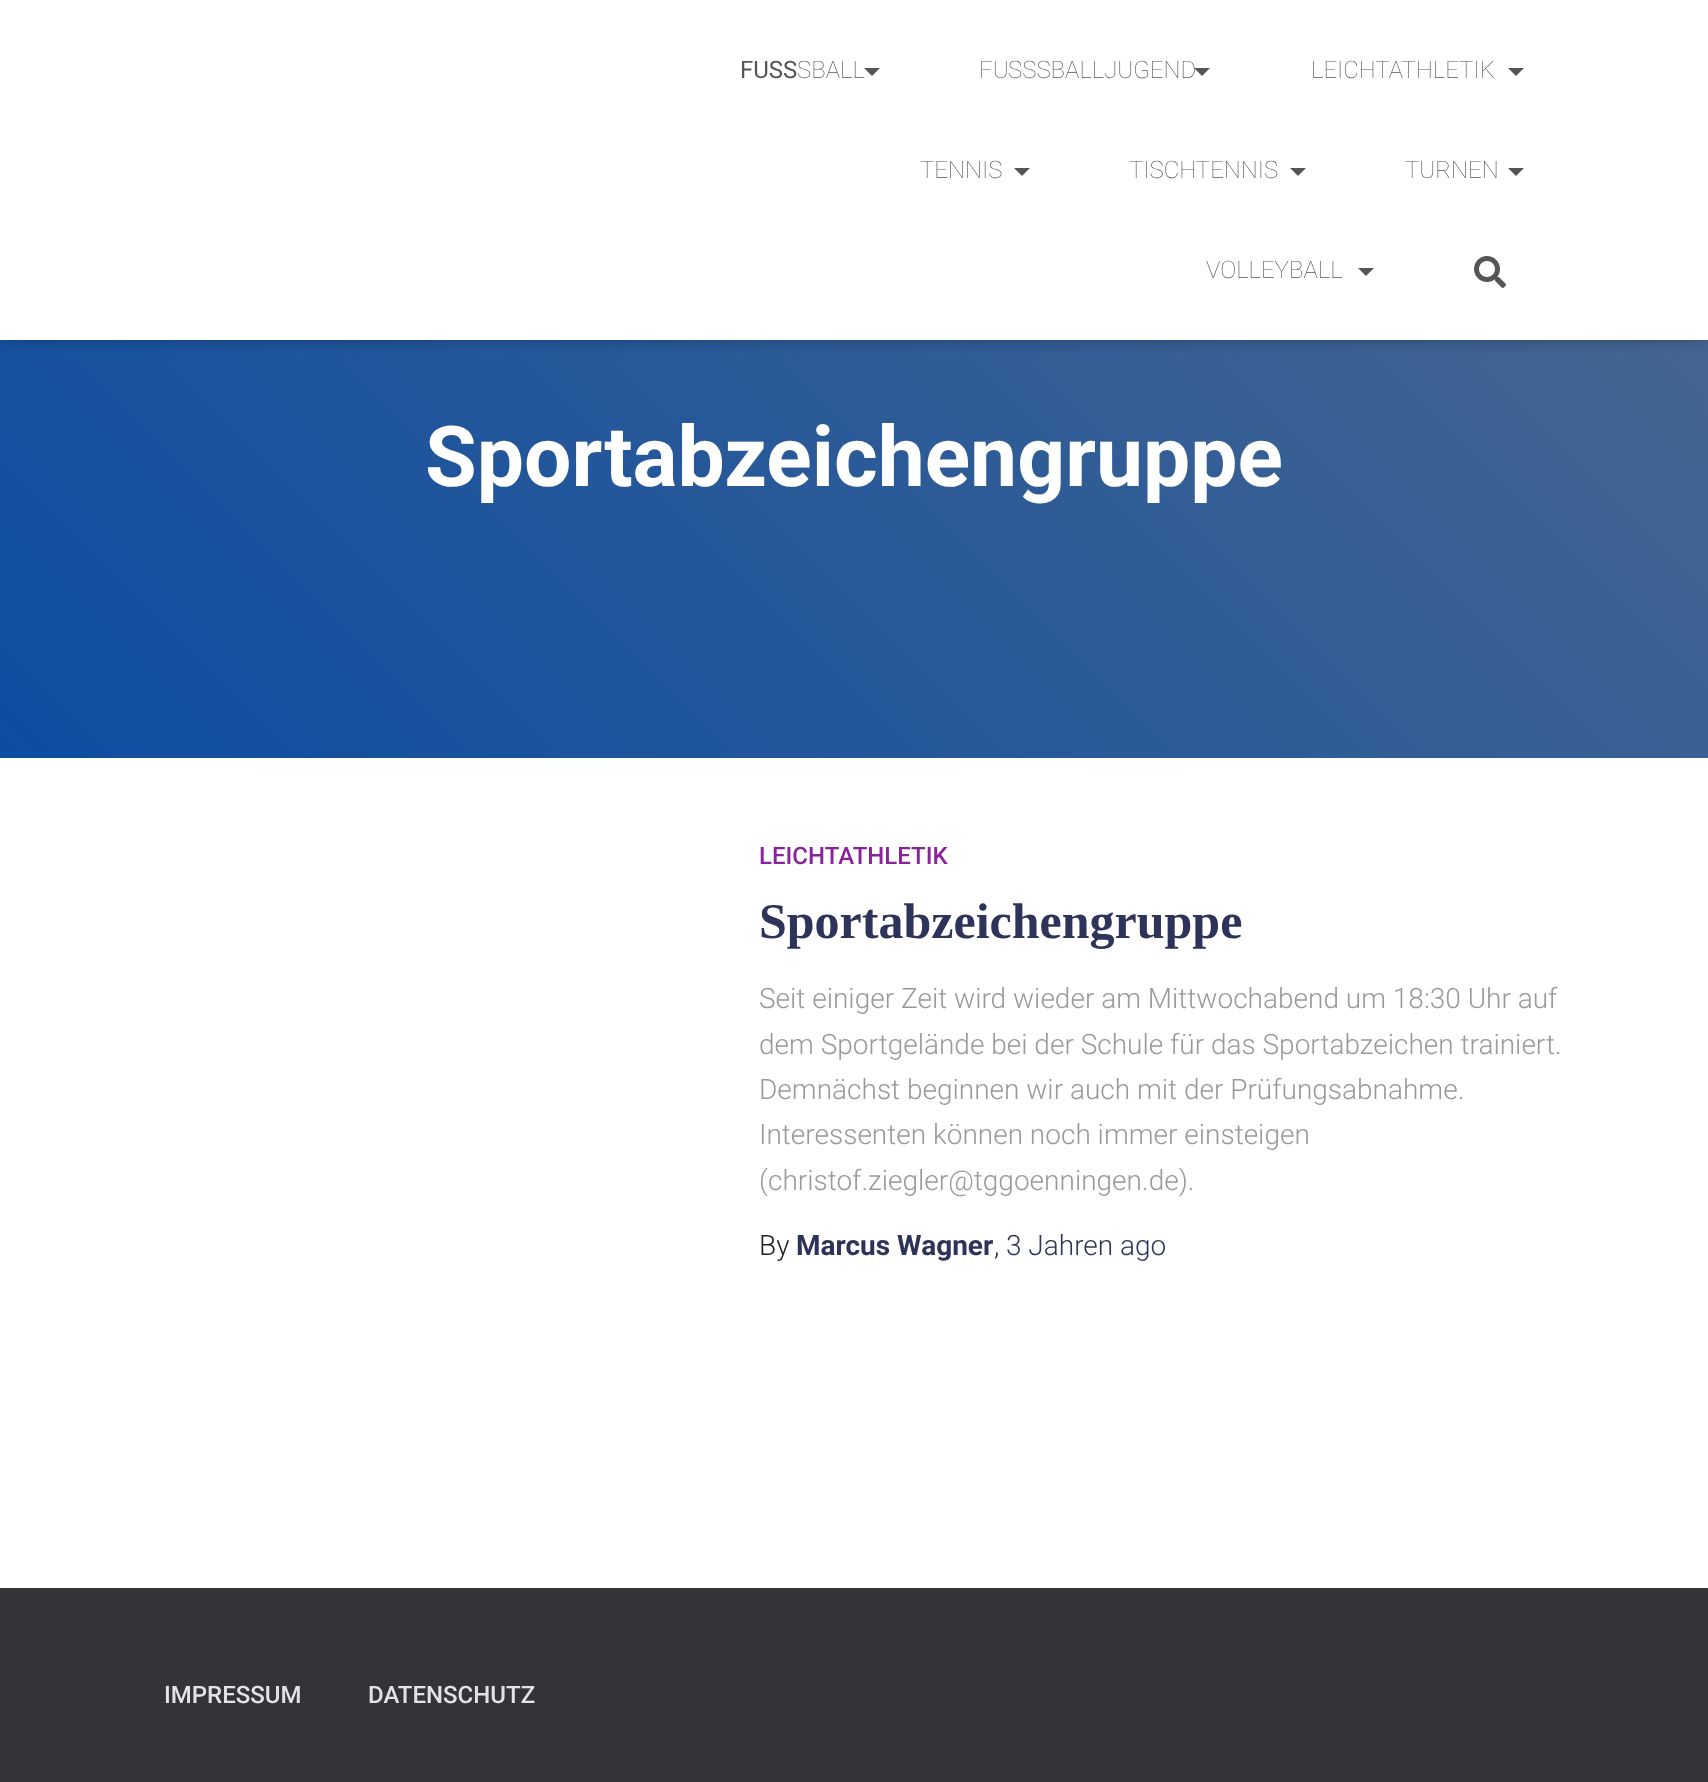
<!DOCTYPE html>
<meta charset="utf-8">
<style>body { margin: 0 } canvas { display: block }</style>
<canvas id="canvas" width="1708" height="1782"></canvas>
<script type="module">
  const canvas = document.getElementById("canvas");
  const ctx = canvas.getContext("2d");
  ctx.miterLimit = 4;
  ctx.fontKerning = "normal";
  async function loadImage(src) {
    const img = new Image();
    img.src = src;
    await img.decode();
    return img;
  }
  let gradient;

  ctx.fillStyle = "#323437";
  ctx.fillRect(0, 0, 1708, 1782);
  gradient = ctx.createLinearGradient(238, 996, 1471, -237);
  gradient.addColorStop(0, "#0c4da2");
  gradient.addColorStop(1, "#4e698d");
  ctx.fillStyle = gradient;
  ctx.fillRect(0, 340, 1708, 418);
  ctx.fillStyle = "rgba(0, 0, 0, 0.1)";
  ctx.filter = "blur(5px)";
  ctx.beginPath();
  ctx.rect(4, 12, 1700, 332);
  ctx.fill();
  ctx.filter = "none";
  ctx.fillStyle = "rgba(0, 0, 0, 0.42)";
  ctx.filter = "blur(10px)";
  ctx.beginPath();
  ctx.rect(12, 14, 1684, 316);
  ctx.fill();
  ctx.filter = "none";
  ctx.fillStyle = "#ffffff";
  ctx.fillRect(0, 0, 1708, 340);
  ctx.font = "24px Roboto";
  ctx.fillStyle = "#555555";
  ctx.fillText("FUSS", 740, 78);
  ctx.font = "100 24px Roboto";
  ctx.fillText("SBALL", 797, 78);
  ctx.beginPath();
  ctx.moveTo(864, 68);
  ctx.lineTo(880, 68);
  ctx.lineTo(872, 76);
  ctx.closePath();
  ctx.fill();
  ctx.fillText("FU", 979, 78);
  ctx.fillText("SSSBALLJUGEND", 1008, 78);
  ctx.beginPath();
  ctx.moveTo(1194, 68);
  ctx.lineTo(1210, 68);
  ctx.lineTo(1202, 76);
  ctx.closePath();
  ctx.fill();
  ctx.fillText("LEICHTATHLETIK", 1311, 78);
  ctx.beginPath();
  ctx.moveTo(1508, 68);
  ctx.lineTo(1524, 68);
  ctx.lineTo(1516, 76);
  ctx.closePath();
  ctx.fill();
  ctx.fillText("TENNIS", 920, 178);
  ctx.beginPath();
  ctx.moveTo(1014, 168);
  ctx.lineTo(1030, 168);
  ctx.lineTo(1022, 176);
  ctx.closePath();
  ctx.fill();
  ctx.fillText("TISCHTENNIS", 1129, 178);
  ctx.beginPath();
  ctx.moveTo(1290, 168);
  ctx.lineTo(1306, 168);
  ctx.lineTo(1298, 176);
  ctx.closePath();
  ctx.fill();
  ctx.fillText("TURNEN", 1405, 178);
  ctx.beginPath();
  ctx.moveTo(1508, 168);
  ctx.lineTo(1524, 168);
  ctx.lineTo(1516, 176);
  ctx.closePath();
  ctx.fill();
  ctx.fillText("VOLLEYBALL", 1206, 278);
  ctx.beginPath();
  ctx.moveTo(1358, 268);
  ctx.lineTo(1374, 268);
  ctx.lineTo(1366, 276);
  ctx.closePath();
  ctx.fill();
  ctx.drawImage(await loadImage("img1.png"), 1474, 256, 32, 32);
  ctx.font = "bold 84px Roboto";
  ctx.fillStyle = "#ffffff";
  ctx.fillText("Sportabzeichengruppe", 425, 486);
  ctx.fillRect(0, 758, 1708, 830);
  ctx.font = "500 24px Roboto";
  ctx.fillStyle = "#89229b";
  ctx.fillText("LEICHTATHLETIK", 759, 864);
  ctx.font = "bold 50px Liberation Serif";
  ctx.fillStyle = "#2d3359";
  ctx.fillText("Sportabzeichengruppe", 759, 938);
  ctx.font = "300 28px Roboto";
  ctx.fillStyle = "#999999";
  ctx.fillText("Seit einiger Zeit wird wieder am Mittwochabend um 18:30 Uhr auf", 759, 1008);
  ctx.fillText("dem Sportgelände bei der Schule für das Sportabzeichen trainiert.", 759, 1054);
  ctx.fillText("Demnächst beginnen wir auch mit der Prüfungsabnahme.", 759, 1099);
  ctx.fillText("Interessenten können noch immer einsteigen", 759, 1144);
  ctx.fillText("(christof.ziegler@tggoenningen.de).", 759, 1190);
  ctx.fillStyle = "#212121";
  ctx.fillText("By", 759, 1255);
  ctx.font = "bold 28px Roboto";
  ctx.fillStyle = "#2d3359";
  ctx.fillText("Marcus Wagner", 796, 1255);
  ctx.font = "300 28px Roboto";
  ctx.fillStyle = "#212121";
  ctx.fillText(",", 994, 1255);
  ctx.fillStyle = "#2d3359";
  ctx.fillText("3 Jahren ago", 1006, 1255);
  ctx.font = "500 24px Roboto";
  ctx.fillStyle = "#e2e3e3";
  ctx.fillText("IMPRESSUM", 164, 1703);
  ctx.fillText("DATENSCHUTZ", 368, 1703);
</script>
